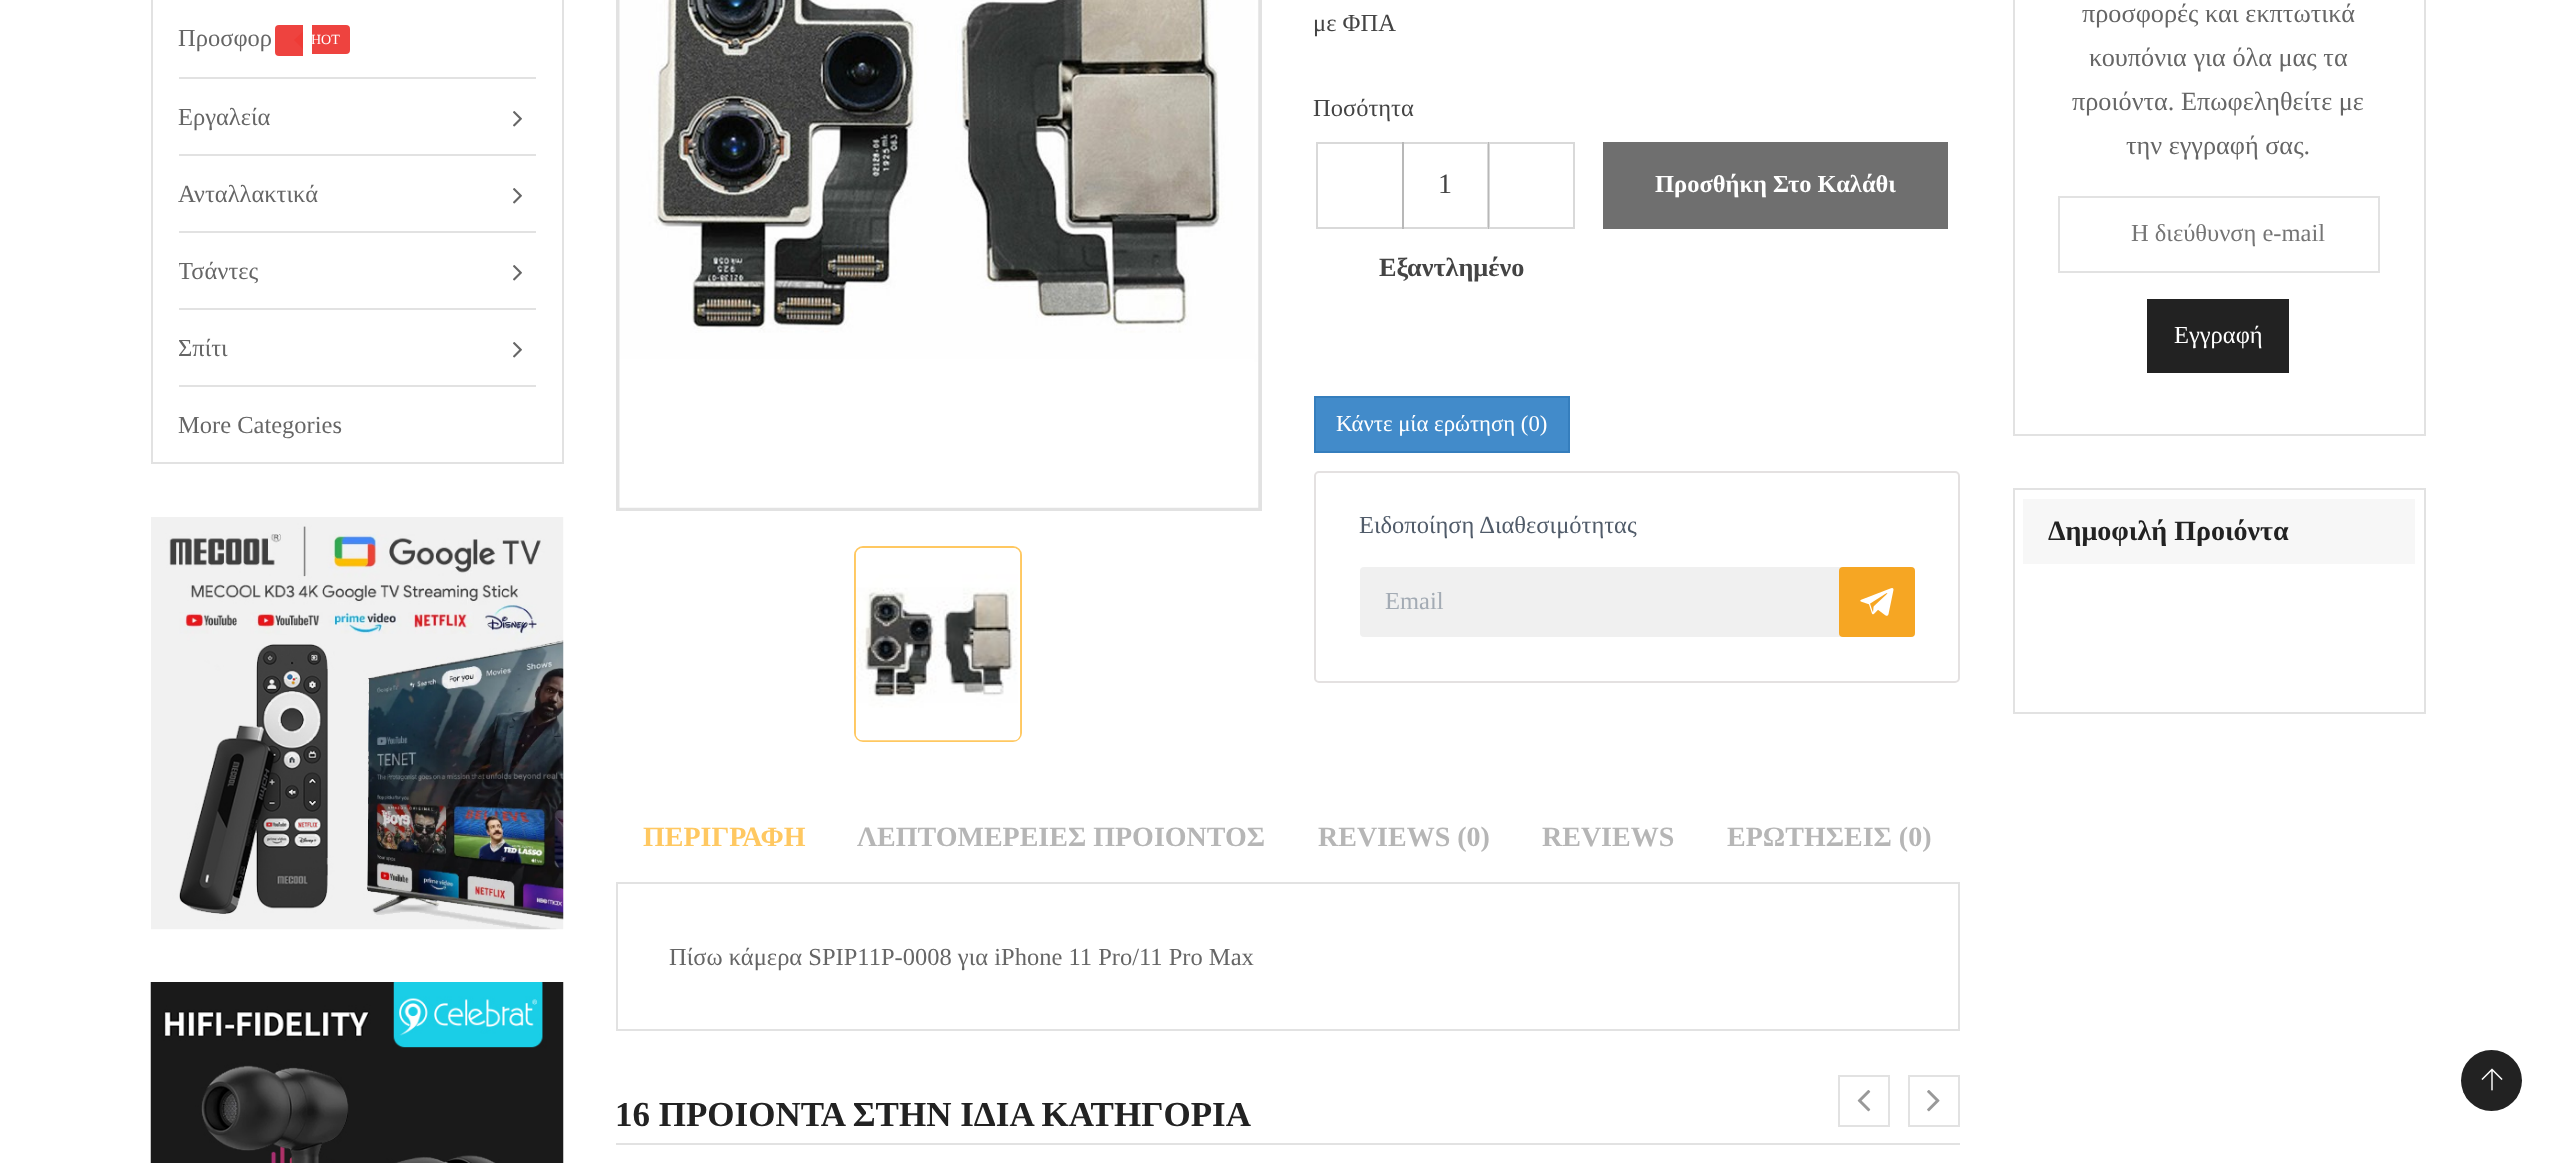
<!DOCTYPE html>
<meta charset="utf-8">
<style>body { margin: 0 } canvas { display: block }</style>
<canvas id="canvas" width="2574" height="1163"></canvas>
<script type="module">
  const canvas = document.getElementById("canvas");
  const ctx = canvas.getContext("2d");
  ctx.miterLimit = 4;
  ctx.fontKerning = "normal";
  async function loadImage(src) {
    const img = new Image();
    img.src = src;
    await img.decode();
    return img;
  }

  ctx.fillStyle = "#ffffff";
  ctx.fillRect(0, 0, 2574, 1163);
  ctx.fillStyle = "#e2e2e2";
  ctx.fillRect(562, 0, 2, 464);
  ctx.fillRect(151, 462, 413, 2);
  ctx.fillRect(151, 0, 2, 464);
  ctx.fillRect(179, 77, 357, 2);
  ctx.font = "24.5px Liberation Serif";
  ctx.fillStyle = "#666666";
  ctx.fillText("Προσφορ", 178, 46);
  ctx.fillStyle = "#ee433f";
  ctx.beginPath();
  ctx.roundRect(275, 25, 28, 31, [4, 0, 0, 4]);
  ctx.fill();
  ctx.beginPath();
  ctx.roundRect(312, 25, 38, 29, [0, 4, 4, 0]);
  ctx.fill();
  ctx.fillStyle = "#ee3b36";
  ctx.beginPath();
  ctx.moveTo(303, 31.5);
  ctx.lineTo(303, 49);
  ctx.lineTo(294, 40);
  ctx.closePath();
  ctx.fill();
  ctx.font = "14px Liberation Serif";
  ctx.fillStyle = "#ffffff";
  ctx.fillText("HOT", 311, 44);
  ctx.fillStyle = "#e2e2e2";
  ctx.fillRect(179, 154, 357, 2);
  ctx.font = "24.5px Liberation Serif";
  ctx.fillStyle = "#666666";
  ctx.fillText("Εργαλεία", 178, 125);
  ctx.drawImage(await loadImage("img1.png"), 513, 111, 9, 16);
  ctx.fillStyle = "#e2e2e2";
  ctx.fillRect(179, 231, 357, 2);
  ctx.fillStyle = "#666666";
  ctx.fillText("Ανταλλακτικά", 178, 202);
  ctx.drawImage(await loadImage("img1.png"), 513, 188, 9, 16);
  ctx.fillStyle = "#e2e2e2";
  ctx.fillRect(179, 308, 357, 2);
  ctx.save();
  ctx.beginPath();
  ctx.rect(179, 233, 357, 75);
  ctx.clip();
  ctx.fillStyle = "#666666";
  ctx.fillText("Τσάντες", 178, 279);
  ctx.restore();
  ctx.drawImage(await loadImage("img1.png"), 513, 265, 9, 16);
  ctx.fillRect(179, 385, 357, 2);
  ctx.save();
  ctx.beginPath();
  ctx.rect(179, 310, 357, 75);
  ctx.clip();
  ctx.fillStyle = "#666666";
  ctx.fillText("Σπίτι", 178, 356);
  ctx.restore();
  ctx.drawImage(await loadImage("img1.png"), 513, 342, 9, 16);
  ctx.fillStyle = "#666666";
  ctx.fillText("More Categories", 178, 433);
  ctx.drawImage(await loadImage("img2.png"), 151, 517, 413, 413);
  ctx.drawImage(await loadImage("img3.png"), 150, 982, 414, 181);
  ctx.strokeStyle = "#e2e2e2";
  ctx.lineWidth = 4;
  ctx.strokeRect(618, -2, 642, 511);
  ctx.drawImage(await loadImage("img4.png"), 619, 0, 640, 508);
  ctx.beginPath();
  ctx.roundRect(855, 547, 166, 194, 8);
  ctx.strokeStyle = "#ffc861";
  ctx.lineWidth = 2;
  ctx.stroke();
  ctx.drawImage(await loadImage("img5.png"), 855, 548, 166, 193);
  ctx.fillStyle = "#444444";
  ctx.fillText("με ΦΠΑ", 1313, 31);
  ctx.fillText("Ποσότητα", 1313, 116);
  ctx.strokeStyle = "#d9d9d9";
  ctx.strokeRect(1317, 143, 86, 85);
  ctx.strokeRect(1489, 143, 85, 85);
  ctx.strokeStyle = "rgba(0, 0, 0, 0.15)";
  ctx.strokeRect(1403, 143, 85, 85);
  ctx.font = "28px Liberation Serif";
  ctx.fillText("1", 1438, 193);
  ctx.fillStyle = "#6f6f6f";
  ctx.fillRect(1603, 142, 345, 87);
  ctx.font = "bold 24.5px Liberation Serif";
  ctx.fillStyle = "#ffffff";
  ctx.fillText("Προσθήκη Στο Καλάθι", 1655, 192);
  ctx.font = "bold 26.25px Liberation Serif";
  ctx.fillStyle = "#444444";
  ctx.fillText("Εξαντλημένο", 1379, 276);
  ctx.fillStyle = "#428bca";
  ctx.beginPath();
  ctx.rect(1315, 397, 254, 55);
  ctx.fill();
  ctx.strokeStyle = "#357ebd";
  ctx.stroke();
  ctx.font = "22.75px Liberation Serif";
  ctx.fillStyle = "#ffffff";
  ctx.fillText("Κάντε μία ερώτηση (0)", 1336, 431);
  ctx.beginPath();
  ctx.roundRect(1315, 472, 644, 210, 4);
  ctx.strokeStyle = "#e4e1e1";
  ctx.stroke();
  ctx.font = "24.5px Liberation Serif";
  ctx.fillStyle = "#505b69";
  ctx.fillText("Ειδοποίηση Διαθεσιμότητας", 1359, 533);
  ctx.fillStyle = "#f0f0f0";
  ctx.beginPath();
  ctx.roundRect(1360, 567, 555, 70, 4);
  ctx.fill();
  ctx.fillStyle = "#a3abb4";
  ctx.fillText("Email", 1385, 609);
  ctx.fillStyle = "#f6a623";
  ctx.beginPath();
  ctx.roundRect(1839, 567, 76, 70, 4);
  ctx.fill();
  ctx.drawImage(await loadImage("img6.png"), 1860, 588, 34, 28);
  ctx.font = "bold 28px Liberation Serif";
  ctx.fillStyle = "#ffc861";
  ctx.fillText("ΠΕΡΙΓΡΑΦΗ", 643, 846);
  ctx.fillStyle = "#b6b6b6";
  ctx.fillText("ΛΕΠΤΟΜΕΡΕΙΕΣ ΠΡΟΙΟΝΤΟΣ", 857, 846);
  ctx.fillText("REVIEWS (0)", 1318, 846);
  ctx.fillText("REVIEWS", 1542, 846);
  ctx.fillText("ΕΡΩΤΗΣΕΙΣ (0)", 1727, 846);
  ctx.strokeStyle = "#e2e2e2";
  ctx.strokeRect(617, 883, 1342, 147);
  ctx.font = "24.5px Liberation Serif";
  ctx.fillStyle = "#666666";
  ctx.fillText("Πίσω κάμερα SPIP11P-0008 για iPhone 11 Pro/11 Pro Max", 669, 965);
  ctx.fillStyle = "#e2e2e2";
  ctx.fillRect(616, 1143, 1344, 2);
  ctx.font = "bold 35px Liberation Serif";
  ctx.fillStyle = "#222222";
  ctx.fillText("16 ΠΡΟΙΟΝΤΑ ΣΤΗΝ ΙΔΙΑ ΚΑΤΗΓΟΡΙΑ", 615, 1126);
  ctx.strokeRect(1839, 1076, 50, 50);
  ctx.drawImage(await loadImage("img7.png"), 1857, 1090, 14, 22);
  ctx.strokeRect(1909, 1076, 50, 50);
  ctx.drawImage(await loadImage("img8.png"), 1927, 1090, 13, 22);
  ctx.strokeRect(2014, -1, 411, 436);
  ctx.font = "26.25px Liberation Serif";
  ctx.fillStyle = "#666666";
  ctx.fillText("προσφορές και εκπτωτικά", 2082, 22);
  ctx.fillText("κουπόνια για όλα μας τα", 2089, 66);
  ctx.fillText("προιόντα. Επωφεληθείτε με", 2072, 110);
  ctx.fillText("την εγγραφή σας.", 2126, 154);
  ctx.strokeRect(2059, 197, 320, 75);
  ctx.font = "24.5px Liberation Serif";
  ctx.fillStyle = "#757575";
  ctx.fillText("Η διεύθυνση e-mail", 2131, 241);
  ctx.fillStyle = "#222222";
  ctx.fillRect(2147, 299, 142, 74);
  ctx.fillStyle = "#ffffff";
  ctx.fillText("Εγγραφή", 2174, 343);
  ctx.strokeRect(2014, 489, 411, 224);
  ctx.fillStyle = "#f7f7f7";
  ctx.fillRect(2023, 499, 392, 65);
  ctx.font = "bold 28px Liberation Serif";
  ctx.fillStyle = "#222222";
  ctx.fillText("Δημοφιλή Προιόντα", 2048, 540);
  ctx.beginPath();
  ctx.arc(2491.5, 1080.5, 30.5, 0, Math.PI * 2);
  ctx.fill();
  ctx.drawImage(await loadImage("img9.png"), 2481, 1068, 22, 23);
</script>
